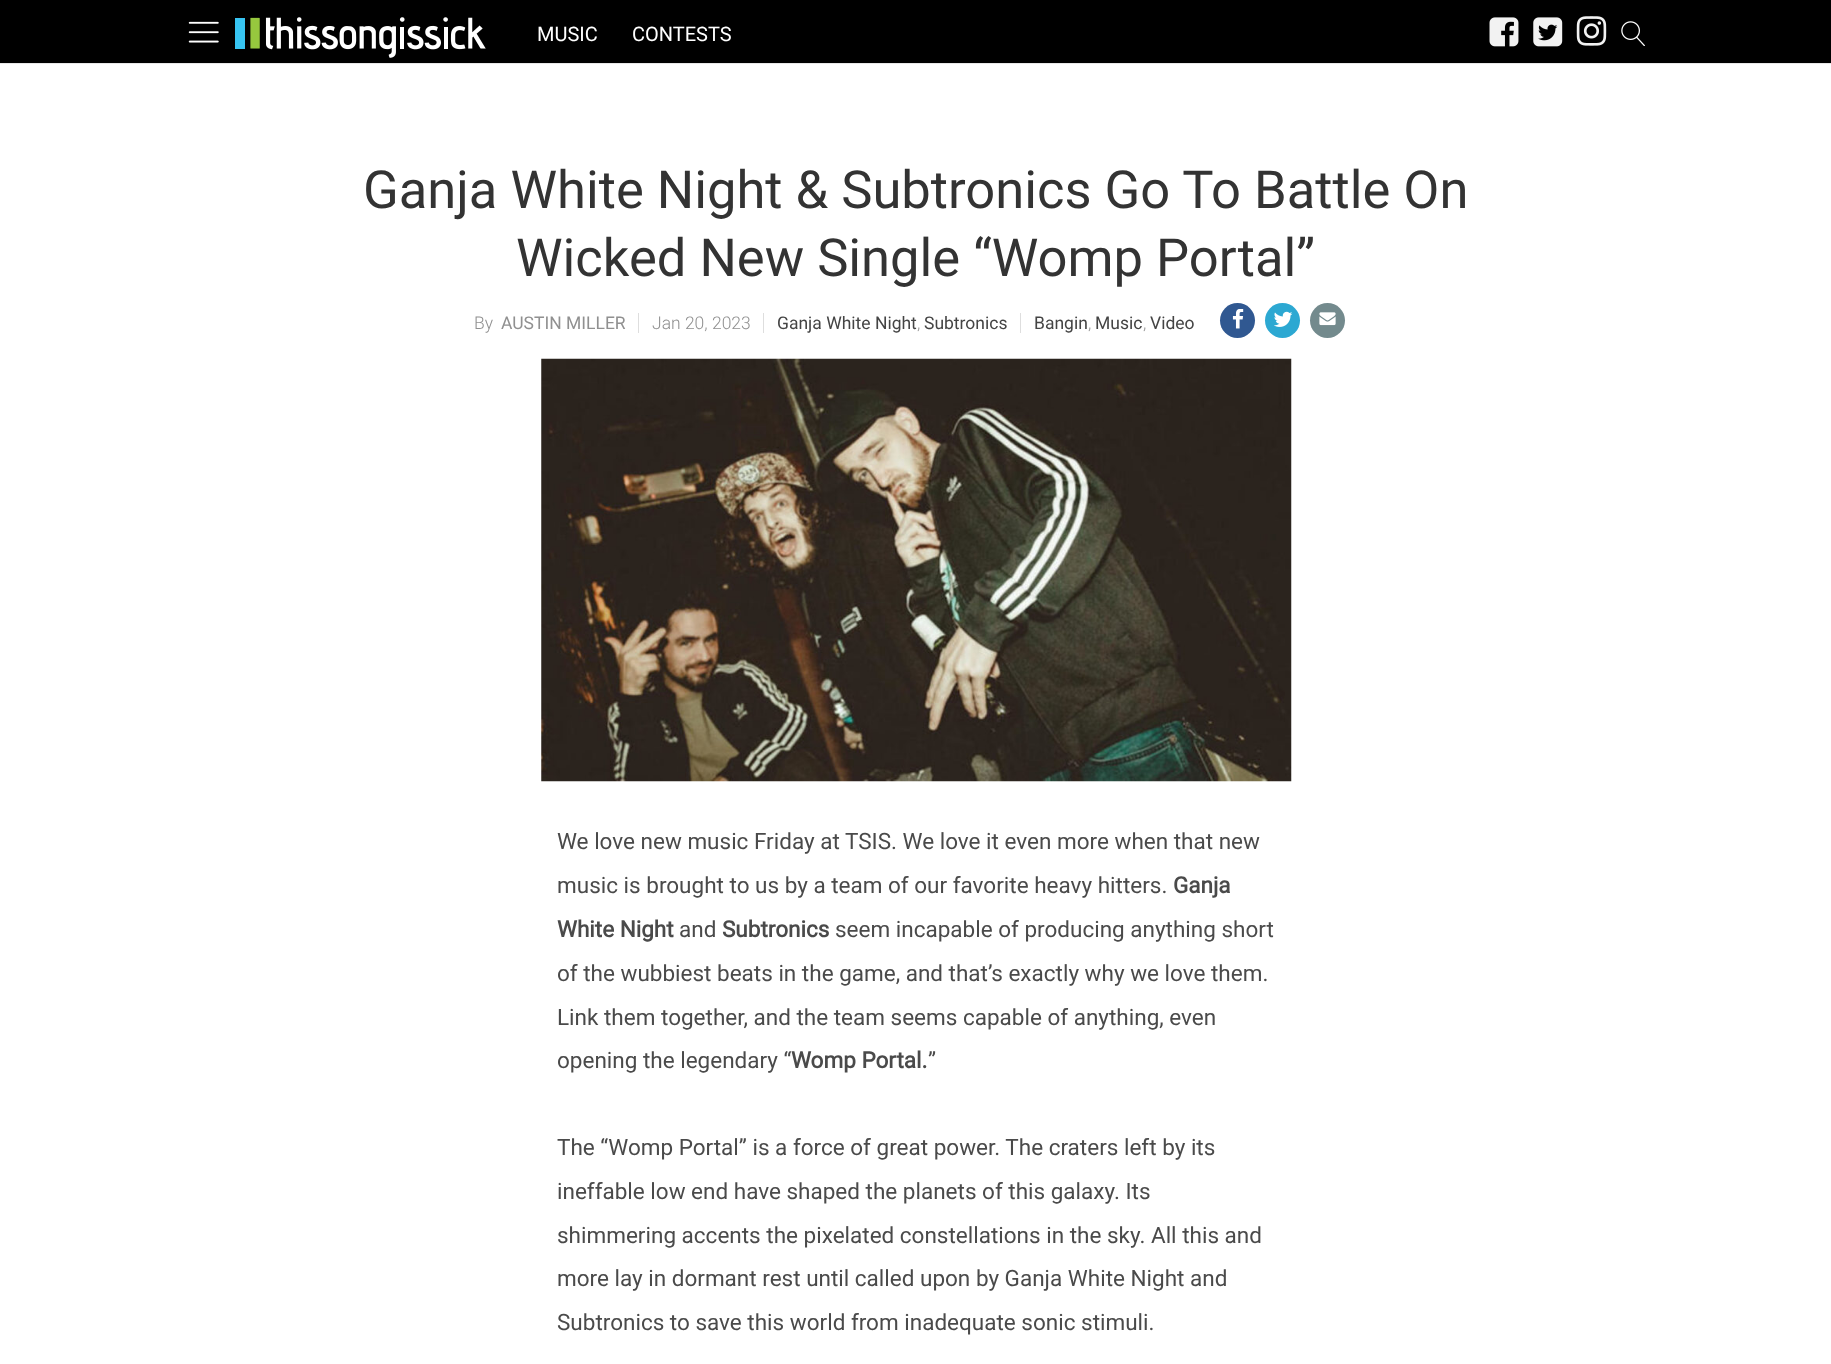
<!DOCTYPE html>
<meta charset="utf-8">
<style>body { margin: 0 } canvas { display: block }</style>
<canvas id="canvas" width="1831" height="1364"></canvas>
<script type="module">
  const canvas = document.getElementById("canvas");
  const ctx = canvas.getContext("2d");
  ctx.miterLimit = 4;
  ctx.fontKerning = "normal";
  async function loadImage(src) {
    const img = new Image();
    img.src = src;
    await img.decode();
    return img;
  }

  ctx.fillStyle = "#ffffff";
  ctx.fillRect(0, 0, 1831, 1364);
  ctx.fillStyle = "#000000";
  ctx.fillRect(0, 0, 1831, 63);
  ctx.fillStyle = "#e7e7e7";
  ctx.fillRect(0, 63, 1831, 1);
  ctx.drawImage(await loadImage("img1.png"), 188, 21, 31, 22);
  ctx.drawImage(await loadImage("img2.png"), 235, 17, 251, 41);
  ctx.font = "20px Roboto";
  ctx.fillStyle = "#ffffff";
  ctx.fillText("MUSIC", 537, 41);
  ctx.fillText("CONTESTS", 632, 41);
  ctx.drawImage(await loadImage("img3.png"), 1489, 17, 30, 30);
  ctx.drawImage(await loadImage("img4.png"), 1533, 17, 30, 30);
  ctx.drawImage(await loadImage("img5.png"), 1576, 16, 31, 30);
  ctx.drawImage(await loadImage("img6.png"), 1621, 21, 24, 25);
  ctx.font = "52.5px Roboto";
  ctx.fillStyle = "#333333";
  ctx.fillText("Ganja White Night & Subtronics Go To Battle On", 363, 208);
  ctx.fillText("Wicked New Single “Womp Portal”", 516, 276);
  ctx.font = "300 17.5px Roboto";
  ctx.fillStyle = "#909090";
  ctx.fillText("By", 474, 329);
  ctx.font = "17.5px Roboto";
  ctx.fillText("AUSTIN MILLER", 501, 329);
  ctx.fillStyle = "#dedede";
  ctx.fillRect(638, 313, 1, 20);
  ctx.font = "300 17.5px Roboto";
  ctx.fillStyle = "#909090";
  ctx.fillText("Jan 20, 2023", 652, 329);
  ctx.fillStyle = "#dedede";
  ctx.fillRect(763, 313, 1, 20);
  ctx.font = "17.5px Roboto";
  ctx.fillStyle = "#444444";
  ctx.fillText("Ganja White Night", 777, 329);
  ctx.font = "300 17.5px Roboto";
  ctx.fillStyle = "#909090";
  ctx.fillText(",", 917, 329);
  ctx.font = "17.5px Roboto";
  ctx.fillStyle = "#444444";
  ctx.fillText("Subtronics", 924, 329);
  ctx.fillStyle = "#dedede";
  ctx.fillRect(1020, 313, 1, 20);
  ctx.fillStyle = "#444444";
  ctx.fillText("Bangin", 1034, 329);
  ctx.font = "300 17.5px Roboto";
  ctx.fillStyle = "#909090";
  ctx.fillText(",", 1088, 329);
  ctx.font = "17.5px Roboto";
  ctx.fillStyle = "#444444";
  ctx.fillText("Music", 1095, 329);
  ctx.font = "300 17.5px Roboto";
  ctx.fillStyle = "#909090";
  ctx.fillText(",", 1143, 329);
  ctx.font = "17.5px Roboto";
  ctx.fillStyle = "#444444";
  ctx.fillText("Video", 1150, 329);
  ctx.fillStyle = "#305891";
  ctx.beginPath();
  ctx.arc(1237.5, 320.5, 17.5, 0, Math.PI * 2);
  ctx.fill();
  ctx.drawImage(await loadImage("img7.png"), 1232, 309, 12, 20);
  ctx.fillStyle = "#2ca8d2";
  ctx.beginPath();
  ctx.arc(1282.5, 320.5, 17.5, 0, Math.PI * 2);
  ctx.fill();
  ctx.drawImage(await loadImage("img8.png"), 1274, 311, 19, 16);
  ctx.fillStyle = "#738a8d";
  ctx.beginPath();
  ctx.arc(1327.5, 320.5, 17.5, 0, Math.PI * 2);
  ctx.fill();
  ctx.drawImage(await loadImage("img9.png"), 1319, 312, 17, 14);
  ctx.drawImage(await loadImage("img10.png"), 541, 358, 751, 424);
  ctx.font = "22.5px Roboto";
  ctx.fillStyle = "#4a4a4a";
  ctx.fillText("We love new music Friday at TSIS. We love it even more when that new", 557, 849);
  ctx.fillText("music is brought to us by a team of our favorite heavy hitters.", 557, 893);
  ctx.font = "bold 22.5px Roboto";
  ctx.fillText("Ganja", 1173, 893);
  ctx.fillText("White Night", 557, 937);
  ctx.font = "22.5px Roboto";
  ctx.fillText("and", 679, 937);
  ctx.font = "bold 22.5px Roboto";
  ctx.fillText("Subtronics", 722, 937);
  ctx.font = "22.5px Roboto";
  ctx.fillText("seem incapable of producing anything short", 835, 937);
  ctx.fillText("of the wubbiest beats in the game, and that’s exactly why we love them.", 557, 981);
  ctx.fillText("Link them together, and the team seems capable of anything, even", 557, 1025);
  ctx.fillText("opening the legendary “", 557, 1068);
  ctx.font = "bold 22.5px Roboto";
  ctx.fillText("Womp Portal.", 791, 1068);
  ctx.font = "22.5px Roboto";
  ctx.fillText("”", 928, 1068);
  ctx.fillText("The “Womp Portal” is a force of great power. The craters left by its", 557, 1155);
  ctx.fillText("ineffable low end have shaped the planets of this galaxy. Its", 557, 1199);
  ctx.fillText("shimmering accents the pixelated constellations in the sky. All this and", 557, 1243);
  ctx.fillText("more lay in dormant rest until called upon by Ganja White Night and", 557, 1286);
  ctx.fillText("Subtronics to save this world from inadequate sonic stimuli.", 557, 1330);
</script>
